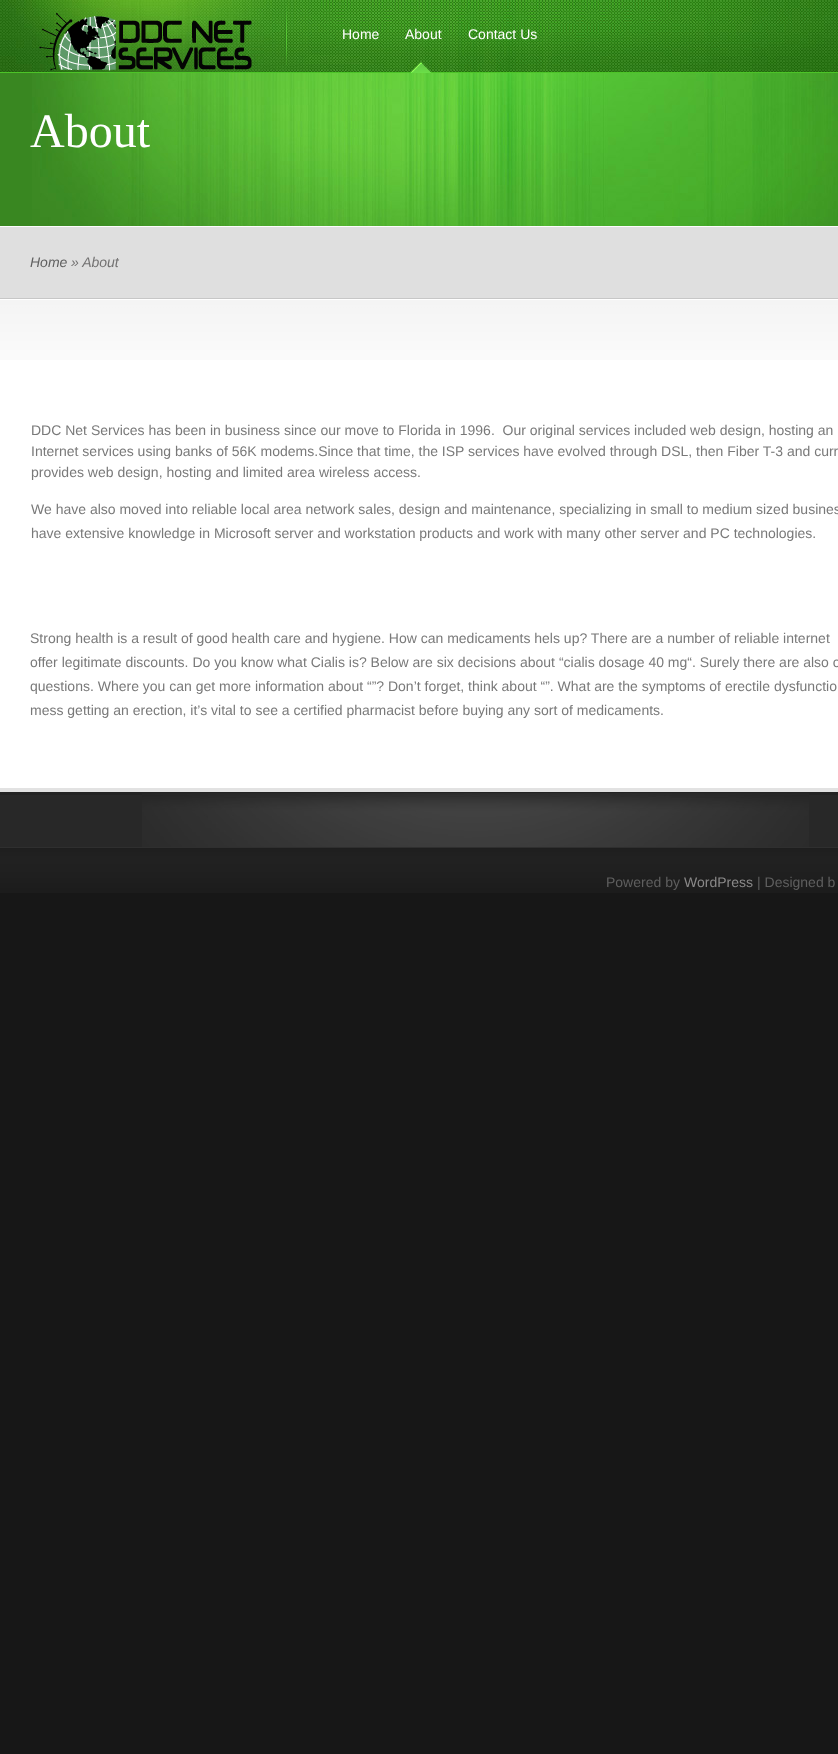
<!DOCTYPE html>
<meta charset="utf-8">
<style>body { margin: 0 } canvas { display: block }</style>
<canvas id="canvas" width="838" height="1754"></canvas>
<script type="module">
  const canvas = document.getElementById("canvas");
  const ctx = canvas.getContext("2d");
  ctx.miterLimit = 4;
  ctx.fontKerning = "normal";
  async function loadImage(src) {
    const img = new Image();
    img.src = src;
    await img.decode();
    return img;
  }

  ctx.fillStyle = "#171717";
  ctx.fillRect(0, 0, 838, 1754);
  ctx.fillStyle = "#4cc427";
  ctx.fillRect(0, 72, 838, 1);
  ctx.drawImage(await loadImage("img1.png"), 0, 0, 838, 72);
  ctx.drawImage(await loadImage("img2.png"), 39, 13, 213, 58);
  ctx.drawImage(await loadImage("img3.png"), 285, 5, 2, 61);
  ctx.font = "14px Liberation Sans";
  ctx.fillStyle = "#ffffff";
  ctx.fillText("Home", 342, 39);
  ctx.drawImage(await loadImage("img4.png"), 411, 62, 20, 11);
  ctx.fillText("About", 405, 39);
  ctx.fillText("Contact Us", 468, 39);
  ctx.fillStyle = "#398721";
  ctx.fillRect(0, 73, 32, 153);
  ctx.drawImage(await loadImage("img5.png"), 32, 73, 806, 153);
  ctx.font = "48px Liberation Serif";
  ctx.fillStyle = "#ffffff";
  ctx.fillText("About", 30, 147);
  ctx.fillStyle = "#dfdfdf";
  ctx.fillRect(0, 227, 838, 71);
  ctx.fillStyle = "#fcfcfc";
  ctx.fillRect(0, 226, 838, 1);
  ctx.font = "italic 14px Liberation Sans";
  ctx.fillStyle = "#5f5f5f";
  ctx.fillText("Home", 30, 267);
  ctx.fillStyle = "#737272";
  ctx.fillText("» About", 71, 267);
  ctx.fillStyle = "#ffffff";
  ctx.fillRect(0, 299, 838, 489);
  ctx.drawImage(await loadImage("img6.png"), 0, 300, 838, 60);
  ctx.fillStyle = "#c7c7c7";
  ctx.fillRect(0, 298, 838, 1);
  ctx.font = "14px Liberation Sans";
  ctx.fillStyle = "#797979";
  ctx.fillText("DDC Net Services has been in business since our move to Florida in 1996.  Our original services included web design, hosting an", 31, 435);
  ctx.fillText("Internet services using banks of 56K modems.Since that time, the ISP services have evolved through DSL, then Fiber T-3 and curr", 31, 456);
  ctx.fillText("provides web design, hosting and limited area wireless access.", 31, 477);
  ctx.fillText("We have also moved into reliable local area network sales, design and maintenance, specializing in small to medium sized busines", 31, 514);
  ctx.fillText("have extensive knowledge in Microsoft server and workstation products and work with many other server and PC technologies.", 31, 538);
  ctx.fillText("Strong health is a result of good health care and hygiene. How can medicaments hels up? There are a number of reliable internet", 30, 643);
  ctx.fillText("offer legitimate discounts. Do you know what Cialis is? Below are six decisions about “cialis dosage 40 mg“. Surely there are also o", 30, 667);
  ctx.fillText("questions. Where you can get more information about “”? Don’t forget, think about “”. What are the symptoms of erectile dysfunctio", 30, 691);
  ctx.fillText("mess getting an erection, it’s vital to see a certified pharmacist before buying any sort of medicaments.", 30, 715);
  ctx.fillStyle = "#282828";
  ctx.fillRect(0, 795, 838, 52);
  ctx.fillStyle = "#232323";
  ctx.fillRect(0, 792, 838, 3);
  ctx.fillStyle = "#e2e2e2";
  ctx.fillRect(0, 788, 838, 4);
  ctx.drawImage(await loadImage("img7.png"), 142, 793, 667, 54);
  ctx.drawImage(await loadImage("img8.png"), 0, 848, 838, 45);
  ctx.fillStyle = "#2f2f2f";
  ctx.fillRect(0, 847, 838, 1);
  ctx.fillStyle = "#5f5f5f";
  ctx.fillText("Powered by", 606, 887);
  ctx.fillStyle = "#8a8989";
  ctx.fillText("WordPress", 684, 887);
  ctx.fillStyle = "#5f5f5f";
  ctx.fillText("| Designed b", 757, 887);
</script>
